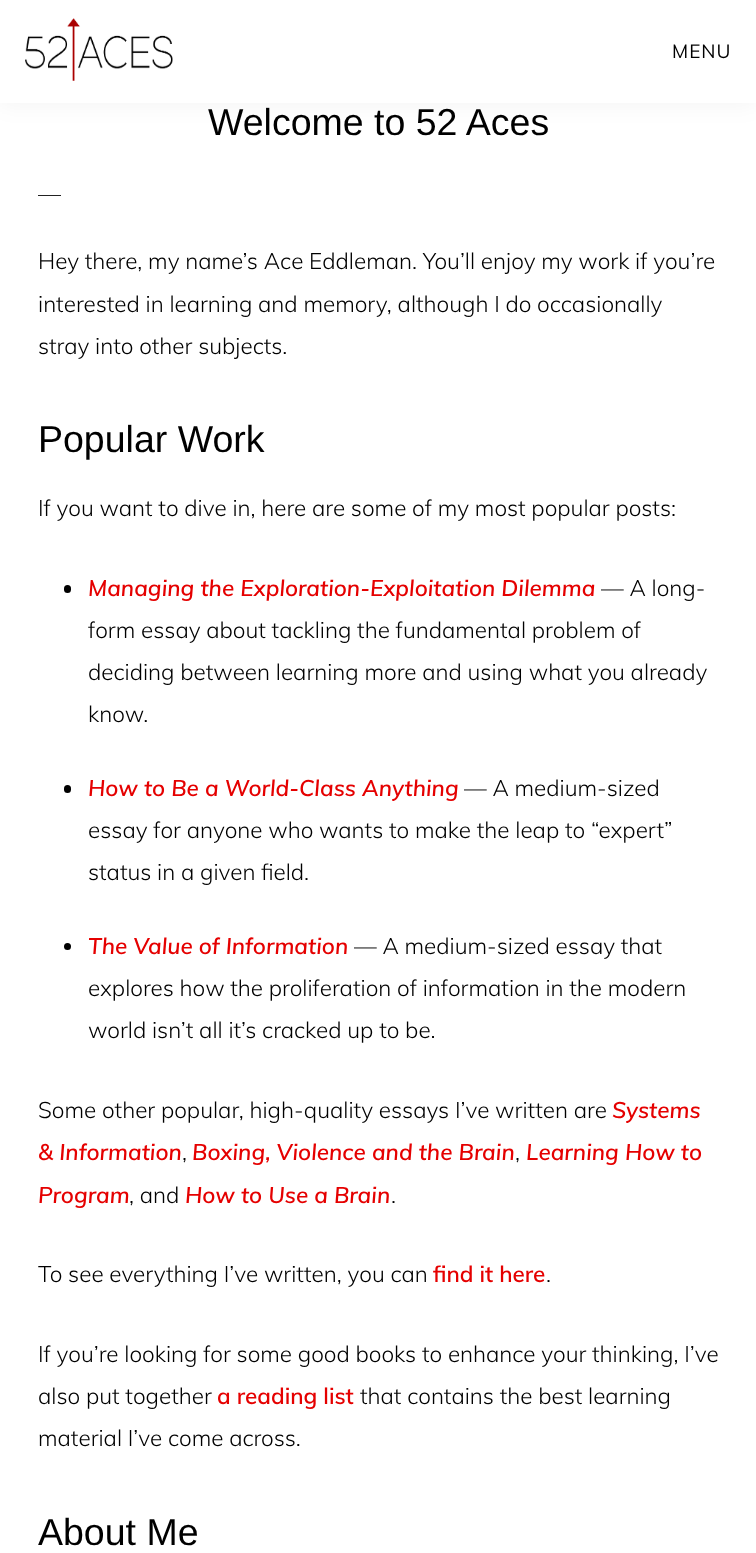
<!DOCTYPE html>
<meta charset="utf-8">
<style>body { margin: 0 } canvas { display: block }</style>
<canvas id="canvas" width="756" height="1553"></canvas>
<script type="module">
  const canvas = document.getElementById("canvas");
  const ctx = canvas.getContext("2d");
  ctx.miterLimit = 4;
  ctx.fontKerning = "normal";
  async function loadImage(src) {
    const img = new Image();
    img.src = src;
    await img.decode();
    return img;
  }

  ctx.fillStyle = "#ffffff";
  ctx.fillRect(0, 0, 756, 1553);
  ctx.fillStyle = "rgba(0, 0, 0, 0.05)";
  ctx.filter = "blur(12.5px)";
  ctx.beginPath();
  ctx.rect(0, 0, 756, 103);
  ctx.fill();
  ctx.filter = "none";
  ctx.fillStyle = "#ffffff";
  ctx.fillRect(0, 0, 756, 103);
  ctx.drawImage(await loadImage("img1.png"), 25, 18, 148, 63);
  ctx.letterSpacing = "1px";
  ctx.font = "19px Muli";
  ctx.fillStyle = "#000000";
  ctx.fillText("MENU", 672, 58);
  ctx.letterSpacing = "0px";
  ctx.font = "37.5px Liberation Sans";
  ctx.fillText("Welcome to 52 Aces", 208, 135);
  ctx.fillStyle = "#222222";
  ctx.fillRect(38, 195, 23, 1);
  ctx.font = "300 22.5px Muli";
  ctx.fillStyle = "#000000";
  ctx.fillText("Hey there, my name’s Ace Eddleman. You’ll enjoy my work if you’re", 38, 269);
  ctx.fillText("interested in learning and memory, although I do occasionally", 38, 312);
  ctx.fillText("stray into other subjects.", 38, 354);
  ctx.font = "37.5px Liberation Sans";
  ctx.fillText("Popular Work", 38, 452);
  ctx.font = "300 22.5px Muli";
  ctx.fillText("If you want to dive in, here are some of my most popular posts:", 38, 516);
  ctx.beginPath();
  ctx.roundRect(64, 585, 7, 8, 3.5);
  ctx.fill();
  ctx.font = "italic 600 22.5px Muli";
  ctx.fillStyle = "#e50000";
  ctx.fillText("Managing the Exploration-Exploitation Dilemma", 88, 596);
  ctx.font = "300 22.5px Muli";
  ctx.fillStyle = "#000000";
  ctx.fillText("— A long-", 601, 596);
  ctx.fillText("form essay about tackling the fundamental problem of", 88, 638);
  ctx.fillText("deciding between learning more and using what you already", 88, 680);
  ctx.fillText("know.", 88, 722);
  ctx.beginPath();
  ctx.roundRect(64, 785, 7, 8, 3.5);
  ctx.fill();
  ctx.font = "italic 600 22.5px Muli";
  ctx.fillStyle = "#e50000";
  ctx.fillText("How to Be a World-Class Anything", 88, 796);
  ctx.font = "300 22.5px Muli";
  ctx.fillStyle = "#000000";
  ctx.fillText("— A medium-sized", 464, 796);
  ctx.fillText("essay for anyone who wants to make the leap to “expert”", 88, 838);
  ctx.fillText("status in a given field.", 88, 880);
  ctx.beginPath();
  ctx.arc(67.5, 946.5, 3.5, 0, Math.PI * 2);
  ctx.fill();
  ctx.font = "italic 600 22.5px Muli";
  ctx.fillStyle = "#e50000";
  ctx.fillText("The Value of Information", 88, 954);
  ctx.font = "300 22.5px Muli";
  ctx.fillStyle = "#000000";
  ctx.fillText("— A medium-sized essay that", 354, 954);
  ctx.fillText("explores how the proliferation of information in the modern", 88, 996);
  ctx.fillText("world isn’t all it’s cracked up to be.", 88, 1038);
  ctx.fillText("Some other popular, high-quality essays I’ve written are", 38, 1118);
  ctx.font = "italic 600 22.5px Muli";
  ctx.fillStyle = "#e50000";
  ctx.fillText("Systems", 612, 1118);
  ctx.fillText("& Information", 38, 1160);
  ctx.font = "300 22.5px Muli";
  ctx.fillStyle = "#000000";
  ctx.fillText(",", 182, 1160);
  ctx.font = "italic 600 22.5px Muli";
  ctx.fillStyle = "#e50000";
  ctx.fillText("Boxing, Violence and the Brain", 192, 1160);
  ctx.font = "300 22.5px Muli";
  ctx.fillStyle = "#000000";
  ctx.fillText(",", 515, 1160);
  ctx.font = "italic 600 22.5px Muli";
  ctx.fillStyle = "#e50000";
  ctx.fillText("Learning How to", 526, 1160);
  ctx.fillText("Program", 38, 1203);
  ctx.font = "300 22.5px Muli";
  ctx.fillStyle = "#000000";
  ctx.fillText(", and", 129, 1203);
  ctx.font = "italic 600 22.5px Muli";
  ctx.fillStyle = "#e50000";
  ctx.fillText("How to Use a Brain", 185, 1203);
  ctx.font = "300 22.5px Muli";
  ctx.fillStyle = "#000000";
  ctx.fillText(".", 391, 1203);
  ctx.fillText("To see everything I’ve written, you can", 38, 1282);
  ctx.font = "600 22.5px Muli";
  ctx.fillStyle = "#e50000";
  ctx.fillText("find it here", 433, 1282);
  ctx.font = "300 22.5px Muli";
  ctx.fillStyle = "#000000";
  ctx.fillText(".", 546, 1282);
  ctx.fillText("If you’re looking for some good books to enhance your thinking, I’ve", 38, 1362);
  ctx.fillText("also put together", 38, 1404);
  ctx.font = "600 22.5px Muli";
  ctx.fillStyle = "#e50000";
  ctx.fillText("a reading list", 217, 1404);
  ctx.font = "300 22.5px Muli";
  ctx.fillStyle = "#000000";
  ctx.fillText("that contains the best learning", 360, 1404);
  ctx.fillText("material I’ve come across.", 38, 1446);
  ctx.font = "37.5px Liberation Sans";
  ctx.fillText("About Me", 38, 1545);
</script>
